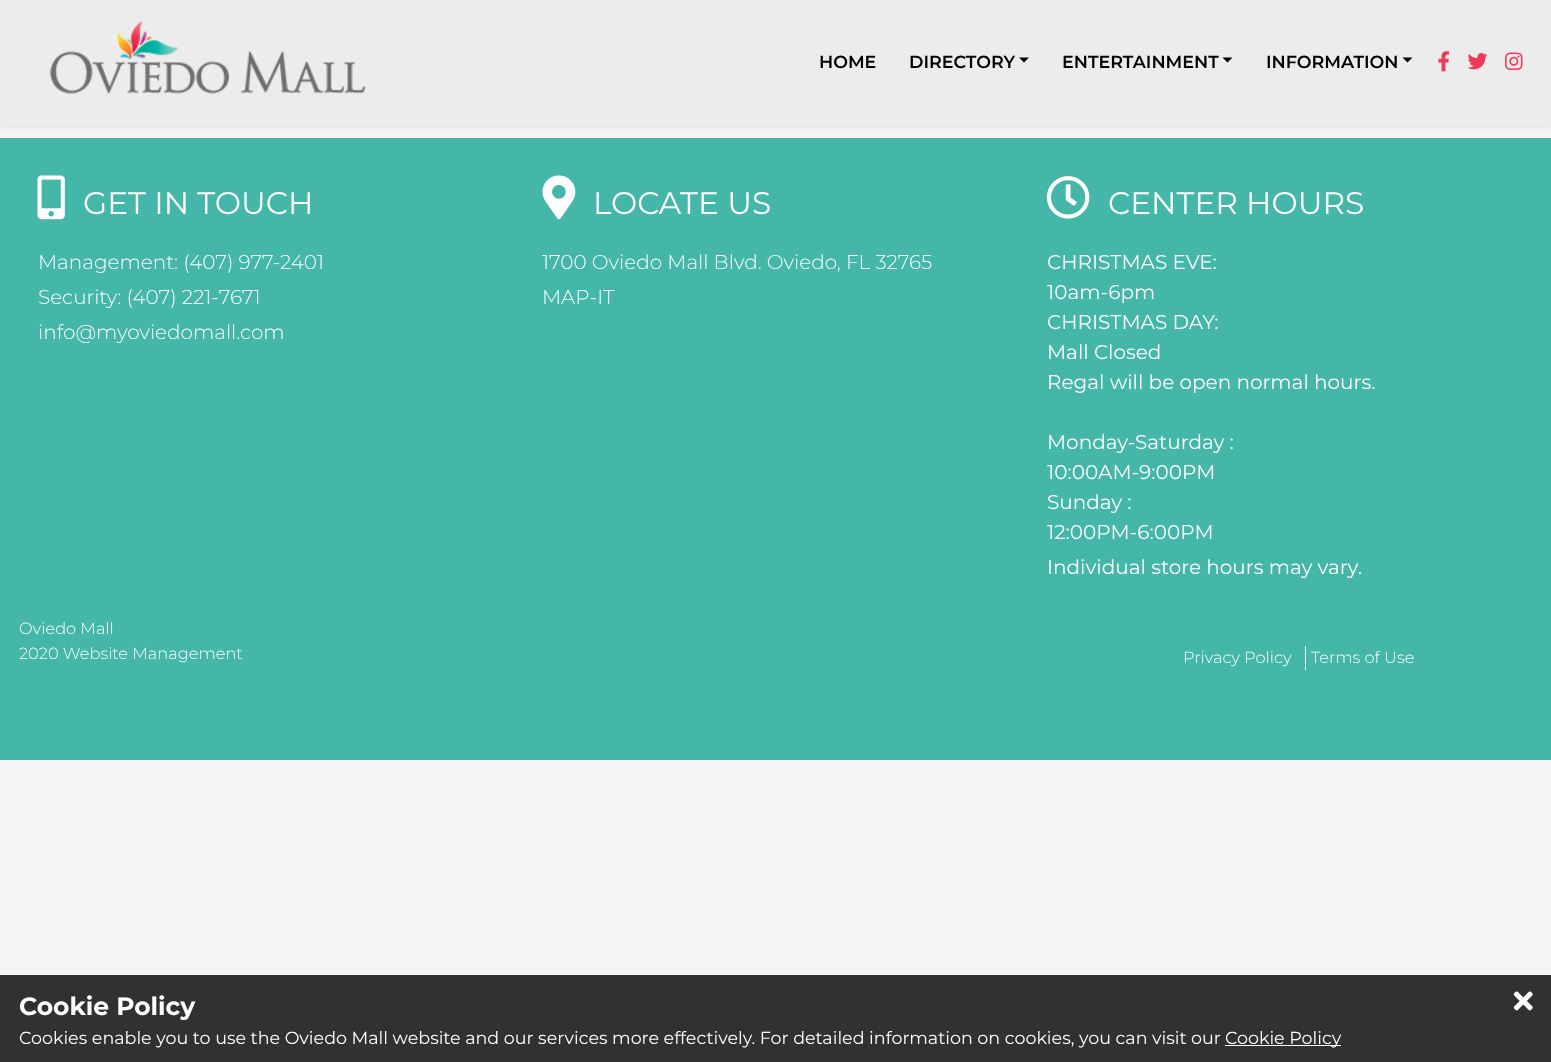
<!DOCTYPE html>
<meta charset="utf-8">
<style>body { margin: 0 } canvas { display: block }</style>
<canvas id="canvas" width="1551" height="1062"></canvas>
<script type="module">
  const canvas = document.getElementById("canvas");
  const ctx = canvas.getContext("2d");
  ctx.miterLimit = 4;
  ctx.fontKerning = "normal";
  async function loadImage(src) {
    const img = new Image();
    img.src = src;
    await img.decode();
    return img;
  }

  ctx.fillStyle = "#f5f5f5";
  ctx.fillRect(0, 0, 1551, 1062);
  ctx.fillStyle = "rgba(0, 0, 0, 0.07)";
  ctx.filter = "blur(2.5px)";
  ctx.beginPath();
  ctx.rect(0, 3, 1551, 125);
  ctx.fill();
  ctx.filter = "none";
  ctx.fillStyle = "#ececec";
  ctx.fillRect(0, 0, 1551, 125);
  ctx.drawImage(await loadImage("img1.png"), 49, 21, 317, 73);
  ctx.font = "600 17.5px Montserrat";
  ctx.fillStyle = "#000000";
  ctx.fillText("HOME", 819, 68);
  ctx.fillText("DIRECTORY", 909, 68);
  ctx.beginPath();
  ctx.moveTo(1019, 57.5);
  ctx.lineTo(1029, 57.5);
  ctx.lineTo(1024, 62.5);
  ctx.closePath();
  ctx.fill();
  ctx.fillText("ENTERTAINMENT", 1062, 68);
  ctx.beginPath();
  ctx.moveTo(1222.5, 57.5);
  ctx.lineTo(1232.5, 57.5);
  ctx.lineTo(1227.5, 62.5);
  ctx.closePath();
  ctx.fill();
  ctx.fillText("INFORMATION", 1266, 68);
  ctx.beginPath();
  ctx.moveTo(1402.5, 57.5);
  ctx.lineTo(1412.5, 57.5);
  ctx.lineTo(1407.5, 62.5);
  ctx.closePath();
  ctx.fill();
  ctx.drawImage(await loadImage("img2.png"), 1438, 51, 12, 21);
  ctx.drawImage(await loadImage("img3.png"), 1467, 53, 21, 17);
  ctx.drawImage(await loadImage("img4.png"), 1505, 52, 18, 18);
  ctx.fillStyle = "#44b7a9";
  ctx.fillRect(0, 138, 1551, 622);
  ctx.drawImage(await loadImage("img5.png"), 37, 175, 28, 45);
  ctx.font = "31.25px Montserrat";
  ctx.fillStyle = "#ffffff";
  ctx.fillText("GET IN TOUCH", 83, 214);
  ctx.font = "300 20px Montserrat";
  ctx.fillText("Management: (407) 977-2401", 38, 269);
  ctx.fillText("Security: (407) 221-7671", 38, 304);
  ctx.fillText("info@myoviedomall.com", 38, 339);
  ctx.drawImage(await loadImage("img6.png"), 542, 175, 34, 45);
  ctx.font = "31.25px Montserrat";
  ctx.fillText("LOCATE US", 593, 214);
  ctx.font = "300 20px Montserrat";
  ctx.fillText("1700 Oviedo Mall Blvd. Oviedo, FL 32765", 542, 269);
  ctx.fillText("MAP-IT", 542, 304);
  ctx.drawImage(await loadImage("img7.png"), 1046, 176, 44, 43);
  ctx.font = "31.25px Montserrat";
  ctx.fillText("CENTER HOURS", 1108, 214);
  ctx.font = "20px Montserrat";
  ctx.fillText("CHRISTMAS EVE:", 1047, 269);
  ctx.fillText("10am-6pm", 1047, 299);
  ctx.fillText("CHRISTMAS DAY:", 1047, 329);
  ctx.fillText("Mall Closed", 1047, 359);
  ctx.fillText("Regal will be open normal hours.", 1047, 389);
  ctx.fillText("Monday-Saturday :", 1047, 449);
  ctx.fillText("10:00AM-9:00PM", 1047, 479);
  ctx.fillText("Sunday :", 1047, 509);
  ctx.fillText("12:00PM-6:00PM", 1047, 539);
  ctx.fillText("Individual store hours may vary.", 1047, 574);
  ctx.font = "300 16.25px Montserrat";
  ctx.fillText("Oviedo Mall", 19, 634);
  ctx.fillText("2020 Website Management", 19, 659);
  ctx.fillRect(1305, 646, 1, 24);
  ctx.fillText("Privacy Policy", 1183, 663);
  ctx.fillText("Terms of Use", 1311, 663);
  ctx.fillStyle = "#313131";
  ctx.fillRect(0, 975, 1551, 87);
  ctx.font = "bold 25px Montserrat";
  ctx.fillStyle = "#ffffff";
  ctx.fillText("Cookie Policy", 19, 1015);
  ctx.drawImage(await loadImage("img8.png"), 1513, 991, 20, 20);
  ctx.font = "17.5px Montserrat";
  ctx.fillText("Cookies enable you to use the Oviedo Mall website and our services more effectively. For detailed information on cookies, you can visit our", 19, 1044);
  ctx.fillRect(1225, 1045, 116, 1);
  ctx.fillText("Cookie Policy", 1225, 1044);
</script>
